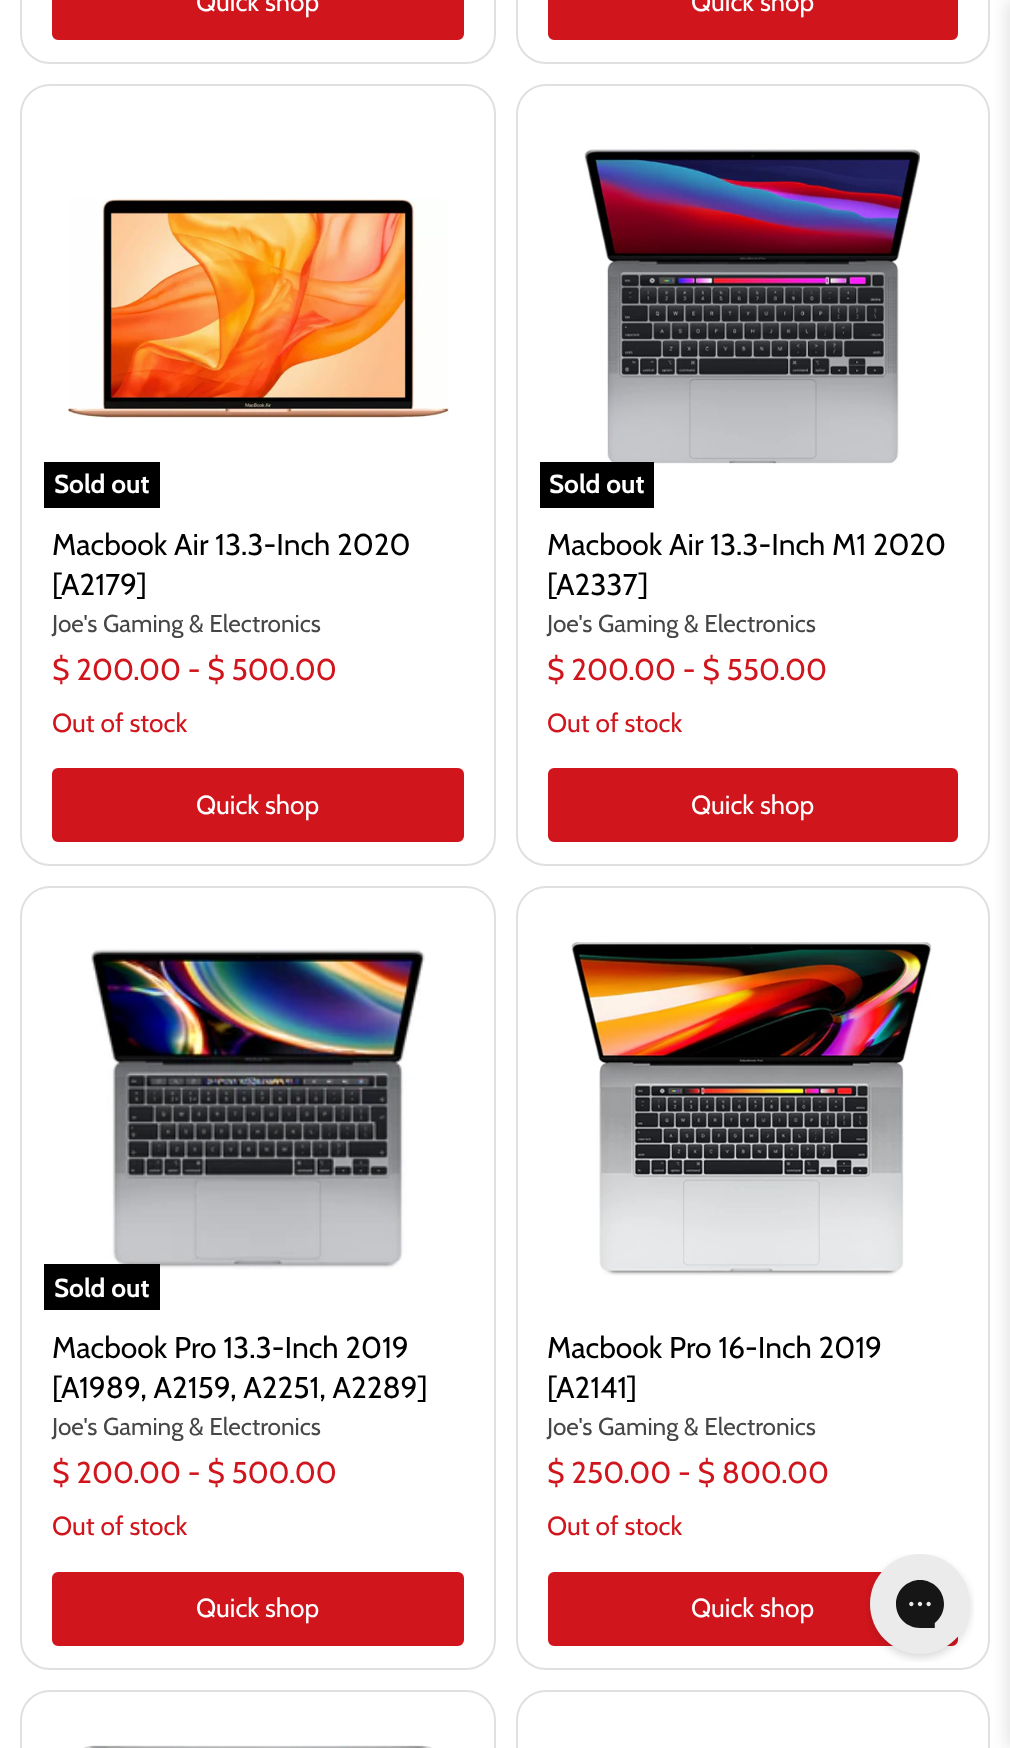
<!DOCTYPE html>
<meta charset="utf-8">
<style>body { margin: 0 } canvas { display: block }</style>
<canvas id="canvas" width="1010" height="1748"></canvas>
<script type="module">
  const canvas = document.getElementById("canvas");
  const ctx = canvas.getContext("2d");
  ctx.miterLimit = 4;
  ctx.fontKerning = "normal";
  async function loadImage(src) {
    const img = new Image();
    img.src = src;
    await img.decode();
    return img;
  }

  ctx.fillStyle = "#ffffff";
  ctx.fillRect(0, 0, 1010, 1748);
  ctx.beginPath();
  ctx.roundRect(21, -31, 474, 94, 29);
  ctx.strokeStyle = "#e0e0e0";
  ctx.lineWidth = 2;
  ctx.stroke();
  ctx.fillStyle = "#d1151c";
  ctx.beginPath();
  ctx.roundRect(53, -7, 410, 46, 5);
  ctx.fill();
  ctx.strokeStyle = "#d1151c";
  ctx.stroke();
  ctx.font = "26.25px Cabin";
  ctx.fillStyle = "#ffffff";
  ctx.fillText("Quick shop", 196, 11);
  ctx.beginPath();
  ctx.roundRect(517, -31, 472, 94, 29);
  ctx.strokeStyle = "#e0e0e0";
  ctx.stroke();
  ctx.fillStyle = "#d1151c";
  ctx.beginPath();
  ctx.roundRect(549, -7, 408, 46, 5);
  ctx.fill();
  ctx.strokeStyle = "#d1151c";
  ctx.stroke();
  ctx.fillStyle = "#ffffff";
  ctx.fillText("Quick shop", 691, 11);
  ctx.beginPath();
  ctx.roundRect(21, 85, 474, 780, 29);
  ctx.strokeStyle = "#e0e0e0";
  ctx.stroke();
  ctx.drawImage(await loadImage("img1.png"), 68, 198, 381, 220);
  ctx.fillStyle = "#000000";
  ctx.fillRect(44, 462, 116, 46);
  ctx.font = "bold 26px Cabin";
  ctx.fillStyle = "#ffffff";
  ctx.fillText("Sold out", 54, 493);
  ctx.font = "30px Cabin";
  ctx.fillStyle = "#000000";
  ctx.fillText("Macbook Air 13.3-Inch 2020", 52, 555);
  ctx.fillText("[A2179]", 52, 595);
  ctx.font = "24.4px Cabin";
  ctx.fillStyle = "#464646";
  ctx.fillText("Joe's Gaming & Electronics", 52, 632);
  ctx.font = "30px Cabin";
  ctx.fillStyle = "#d1151c";
  ctx.fillText("$ 200.00 - $ 500.00", 52, 680);
  ctx.font = "26.25px Cabin";
  ctx.fillText("Out of stock", 52, 732);
  ctx.beginPath();
  ctx.roundRect(53, 769, 410, 72, 5);
  ctx.fill();
  ctx.strokeStyle = "#d1151c";
  ctx.stroke();
  ctx.fillStyle = "#ffffff";
  ctx.fillText("Quick shop", 196, 814);
  ctx.beginPath();
  ctx.roundRect(517, 85, 472, 780, 29);
  ctx.strokeStyle = "#e0e0e0";
  ctx.stroke();
  ctx.drawImage(await loadImage("img2.png"), 584, 149, 336, 315);
  ctx.fillStyle = "#000000";
  ctx.fillRect(540, 462, 114, 46);
  ctx.font = "bold 26px Cabin";
  ctx.fillStyle = "#ffffff";
  ctx.fillText("Sold out", 549, 493);
  ctx.font = "30px Cabin";
  ctx.fillStyle = "#000000";
  ctx.fillText("Macbook Air 13.3-Inch M1 2020", 547, 555);
  ctx.fillText("[A2337]", 547, 595);
  ctx.font = "24.4px Cabin";
  ctx.fillStyle = "#464646";
  ctx.fillText("Joe's Gaming & Electronics", 547, 632);
  ctx.font = "30px Cabin";
  ctx.fillStyle = "#d1151c";
  ctx.fillText("$ 200.00 - $ 550.00", 547, 680);
  ctx.font = "26.25px Cabin";
  ctx.fillText("Out of stock", 547, 732);
  ctx.beginPath();
  ctx.roundRect(549, 769, 408, 72, 5);
  ctx.fill();
  ctx.strokeStyle = "#d1151c";
  ctx.stroke();
  ctx.fillStyle = "#ffffff";
  ctx.fillText("Quick shop", 691, 814);
  ctx.beginPath();
  ctx.roundRect(21, 887, 474, 782, 29);
  ctx.strokeStyle = "#e0e0e0";
  ctx.stroke();
  ctx.drawImage(await loadImage("img3.png"), 91, 948, 334, 322);
  ctx.fillStyle = "#000000";
  ctx.fillRect(44, 1264, 116, 46);
  ctx.font = "bold 26px Cabin";
  ctx.fillStyle = "#ffffff";
  ctx.fillText("Sold out", 54, 1297);
  ctx.font = "30px Cabin";
  ctx.fillStyle = "#000000";
  ctx.fillText("Macbook Pro 13.3-Inch 2019", 52, 1358);
  ctx.fillText("[A1989, A2159, A2251, A2289]", 52, 1398);
  ctx.font = "24.4px Cabin";
  ctx.fillStyle = "#464646";
  ctx.fillText("Joe's Gaming & Electronics", 52, 1435);
  ctx.font = "30px Cabin";
  ctx.fillStyle = "#d1151c";
  ctx.fillText("$ 200.00 - $ 500.00", 52, 1483);
  ctx.font = "26.25px Cabin";
  ctx.fillText("Out of stock", 52, 1535);
  ctx.beginPath();
  ctx.roundRect(53, 1573, 410, 72, 5);
  ctx.fill();
  ctx.strokeStyle = "#d1151c";
  ctx.stroke();
  ctx.fillStyle = "#ffffff";
  ctx.fillText("Quick shop", 196, 1617);
  ctx.beginPath();
  ctx.roundRect(517, 887, 472, 782, 29);
  ctx.strokeStyle = "#e0e0e0";
  ctx.stroke();
  ctx.drawImage(await loadImage("img4.png"), 571, 942, 361, 334);
  ctx.font = "30px Cabin";
  ctx.fillStyle = "#000000";
  ctx.fillText("Macbook Pro 16-Inch 2019", 547, 1358);
  ctx.fillText("[A2141]", 547, 1398);
  ctx.font = "24.4px Cabin";
  ctx.fillStyle = "#464646";
  ctx.fillText("Joe's Gaming & Electronics", 547, 1435);
  ctx.font = "30px Cabin";
  ctx.fillStyle = "#d1151c";
  ctx.fillText("$ 250.00 - $ 800.00", 547, 1483);
  ctx.font = "26.25px Cabin";
  ctx.fillText("Out of stock", 547, 1535);
  ctx.beginPath();
  ctx.roundRect(549, 1573, 408, 72, 5);
  ctx.fill();
  ctx.strokeStyle = "#d1151c";
  ctx.stroke();
  ctx.fillStyle = "#ffffff";
  ctx.fillText("Quick shop", 691, 1617);
  ctx.beginPath();
  ctx.roundRect(21, 1691, 474, 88, 29);
  ctx.strokeStyle = "#e0e0e0";
  ctx.stroke();
  ctx.drawImage(await loadImage("img5.png"), 83, 1745, 349, 3);
  ctx.beginPath();
  ctx.roundRect(517, 1691, 472, 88, 29);
  ctx.stroke();
  ctx.fillStyle = "rgba(0, 0, 0, 0.1)";
  ctx.filter = "blur(8px)";
  ctx.beginPath();
  ctx.rect(1006, 0, 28, 1748);
  ctx.fill();
  ctx.filter = "none";
  ctx.drawImage(await loadImage("img6.png"), 866, 1554, 108, 108);
</script>
